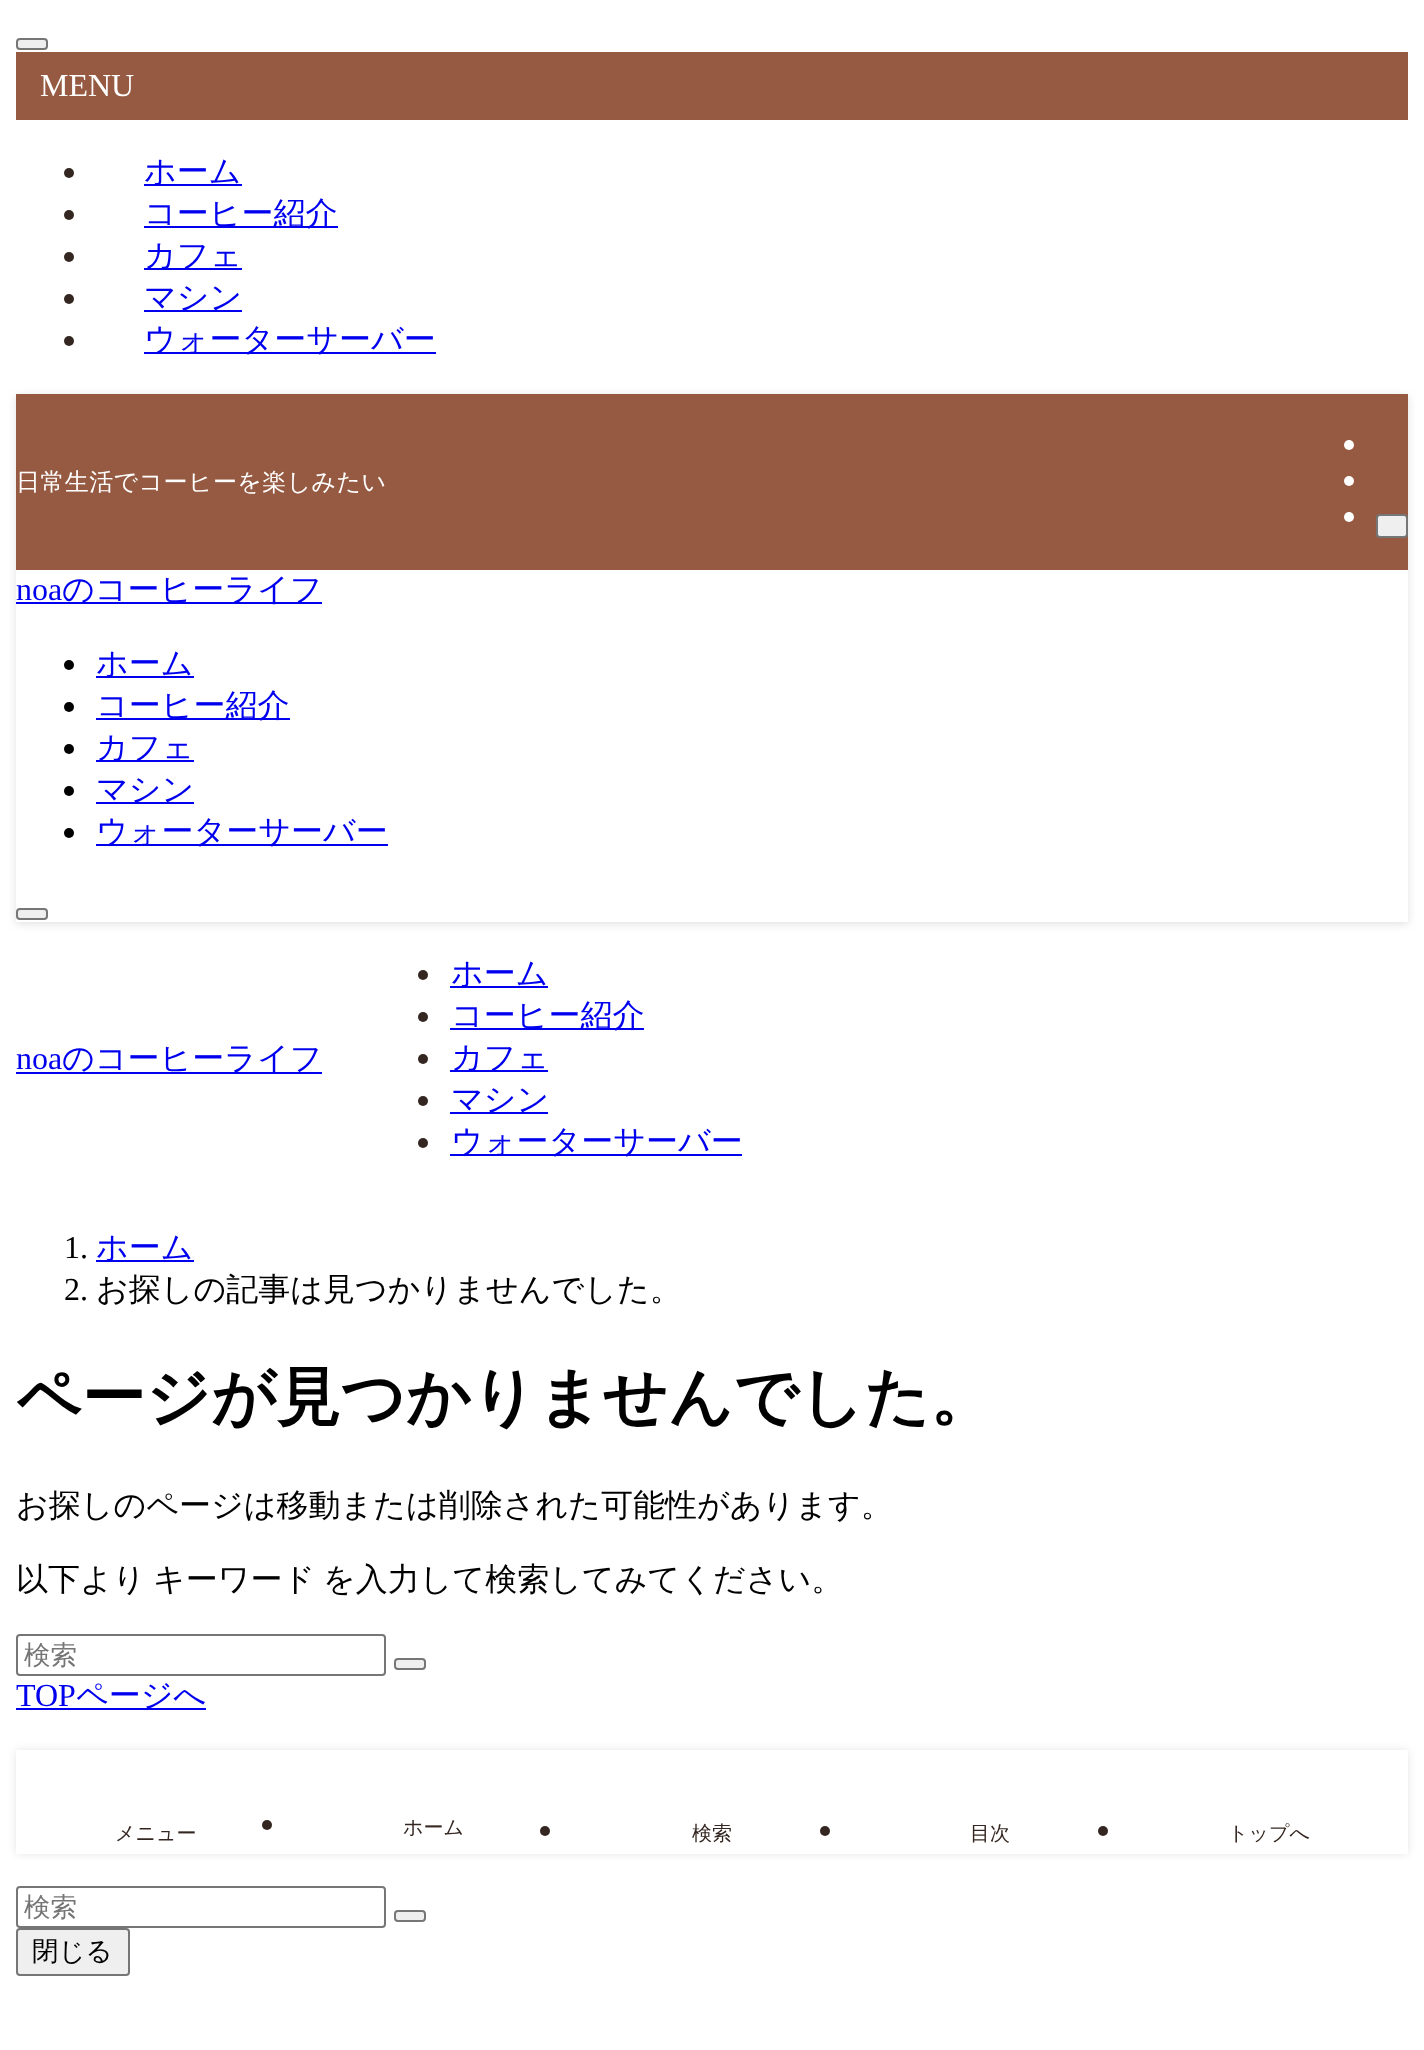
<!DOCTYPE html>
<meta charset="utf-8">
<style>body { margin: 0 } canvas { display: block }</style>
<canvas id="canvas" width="1424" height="2050"></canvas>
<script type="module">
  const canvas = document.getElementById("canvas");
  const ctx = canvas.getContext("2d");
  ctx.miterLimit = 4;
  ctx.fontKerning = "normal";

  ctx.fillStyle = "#ffffff";
  ctx.fillRect(0, 0, 1424, 2050);
  ctx.fillStyle = "#efefef";
  ctx.beginPath();
  ctx.roundRect(17, 39, 30, 10, 3);
  ctx.fill();
  ctx.strokeStyle = "#767676";
  ctx.lineWidth = 2;
  ctx.stroke();
  ctx.fillStyle = "#955a41";
  ctx.fillRect(16, 52, 1392, 68);
  ctx.font = "32px Liberation Serif";
  ctx.fillStyle = "#ffffff";
  ctx.fillText("MENU", 40, 96);
  ctx.fillStyle = "#342721";
  ctx.beginPath();
  ctx.arc(69, 173, 5, 0, Math.PI * 2);
  ctx.fill();
  ctx.fillStyle = "#0000ee";
  ctx.fillRect(144, 184, 98, 2);
  ctx.font = "500 32px WenQuanYi Zen Hei";
  ctx.fillText("ホーム", 144, 182);
  ctx.fillStyle = "#342721";
  ctx.beginPath();
  ctx.arc(69, 215, 5, 0, Math.PI * 2);
  ctx.fill();
  ctx.fillStyle = "#0000ee";
  ctx.fillRect(144, 226, 194, 2);
  ctx.fillText("コーヒー紹介", 144, 224);
  ctx.fillStyle = "#342721";
  ctx.beginPath();
  ctx.arc(69, 257, 5, 0, Math.PI * 2);
  ctx.fill();
  ctx.fillStyle = "#0000ee";
  ctx.fillRect(144, 268, 98, 2);
  ctx.fillText("カフェ", 144, 266);
  ctx.fillStyle = "#342721";
  ctx.beginPath();
  ctx.arc(69, 299, 5, 0, Math.PI * 2);
  ctx.fill();
  ctx.fillStyle = "#0000ee";
  ctx.fillRect(144, 310, 98, 2);
  ctx.fillText("マシン", 144, 308);
  ctx.fillStyle = "#342721";
  ctx.beginPath();
  ctx.arc(69, 341, 5, 0, Math.PI * 2);
  ctx.fill();
  ctx.fillStyle = "#0000ee";
  ctx.fillRect(144, 352, 292, 2);
  ctx.fillText("ウォーターサーバー", 144, 350);
  ctx.save();
  ctx.beginPath();
  ctx.moveTo(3, 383);
  ctx.lineTo(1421, 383);
  ctx.lineTo(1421, 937);
  ctx.lineTo(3, 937);
  ctx.closePath();
  ctx.moveTo(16, 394);
  ctx.lineTo(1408, 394);
  ctx.lineTo(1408, 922);
  ctx.lineTo(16, 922);
  ctx.closePath();
  ctx.clip("evenodd");
  ctx.fillStyle = "rgba(0, 0, 0, 0.12)";
  ctx.filter = "blur(4px)";
  ctx.beginPath();
  ctx.rect(16, 396, 1392, 528);
  ctx.fill();
  ctx.filter = "none";
  ctx.restore();
  ctx.fillStyle = "#955a41";
  ctx.fillRect(16, 394, 1392, 176);
  ctx.letterSpacing = "0.4px";
  ctx.font = "500 24px WenQuanYi Zen Hei";
  ctx.fillStyle = "#ffffff";
  ctx.fillText("日常生活でコーヒーを楽しみたい", 16, 490);
  ctx.beginPath();
  ctx.arc(1349, 445, 5, 0, Math.PI * 2);
  ctx.fill();
  ctx.beginPath();
  ctx.arc(1349, 481, 5, 0, Math.PI * 2);
  ctx.fill();
  ctx.beginPath();
  ctx.arc(1349, 517, 5, 0, Math.PI * 2);
  ctx.fill();
  ctx.fillStyle = "#efefef";
  ctx.beginPath();
  ctx.roundRect(1377, 515, 30, 22, 3);
  ctx.fill();
  ctx.stroke();
  ctx.letterSpacing = "0px";
  ctx.font = "32px Liberation Serif";
  ctx.fillStyle = "#0000ee";
  ctx.fillText("noa", 16, 600);
  ctx.fillRect(16, 602, 306, 2);
  ctx.font = "500 32px WenQuanYi Zen Hei";
  ctx.fillText("のコーヒーライフ", 62, 600);
  ctx.fillStyle = "#000000";
  ctx.beginPath();
  ctx.arc(69, 665, 5, 0, Math.PI * 2);
  ctx.fill();
  ctx.fillStyle = "#0000ee";
  ctx.fillRect(96, 676, 98, 2);
  ctx.fillText("ホーム", 96, 674);
  ctx.fillStyle = "#000000";
  ctx.beginPath();
  ctx.arc(69, 707, 5, 0, Math.PI * 2);
  ctx.fill();
  ctx.fillStyle = "#0000ee";
  ctx.fillRect(96, 718, 194, 2);
  ctx.fillText("コーヒー紹介", 96, 716);
  ctx.fillStyle = "#000000";
  ctx.beginPath();
  ctx.arc(69, 749, 5, 0, Math.PI * 2);
  ctx.fill();
  ctx.fillStyle = "#0000ee";
  ctx.fillRect(96, 760, 98, 2);
  ctx.fillText("カフェ", 96, 758);
  ctx.fillStyle = "#000000";
  ctx.beginPath();
  ctx.arc(69, 791, 5, 0, Math.PI * 2);
  ctx.fill();
  ctx.fillStyle = "#0000ee";
  ctx.fillRect(96, 802, 98, 2);
  ctx.fillText("マシン", 96, 800);
  ctx.fillStyle = "#000000";
  ctx.beginPath();
  ctx.arc(69, 833, 5, 0, Math.PI * 2);
  ctx.fill();
  ctx.fillStyle = "#0000ee";
  ctx.fillRect(96, 844, 292, 2);
  ctx.fillText("ウォーターサーバー", 96, 842);
  ctx.fillStyle = "#efefef";
  ctx.beginPath();
  ctx.roundRect(17, 909, 30, 10, 3);
  ctx.fill();
  ctx.stroke();
  ctx.font = "32px Liberation Serif";
  ctx.fillStyle = "#0000ee";
  ctx.fillText("noa", 16, 1069);
  ctx.fillRect(16, 1072, 306, 2);
  ctx.font = "500 32px WenQuanYi Zen Hei";
  ctx.fillText("のコーヒーライフ", 62, 1069);
  ctx.fillStyle = "#342721";
  ctx.beginPath();
  ctx.arc(423, 975, 5, 0, Math.PI * 2);
  ctx.fill();
  ctx.fillStyle = "#0000ee";
  ctx.fillRect(450, 986, 98, 2);
  ctx.fillText("ホーム", 451, 984);
  ctx.fillStyle = "#342721";
  ctx.beginPath();
  ctx.arc(423, 1017, 5, 0, Math.PI * 2);
  ctx.fill();
  ctx.fillStyle = "#0000ee";
  ctx.fillRect(450, 1028, 194, 2);
  ctx.fillText("コーヒー紹介", 451, 1026);
  ctx.fillStyle = "#342721";
  ctx.beginPath();
  ctx.arc(423, 1059, 5, 0, Math.PI * 2);
  ctx.fill();
  ctx.fillStyle = "#0000ee";
  ctx.fillRect(450, 1070, 98, 2);
  ctx.fillText("カフェ", 451, 1068);
  ctx.fillStyle = "#342721";
  ctx.beginPath();
  ctx.arc(423, 1101, 5, 0, Math.PI * 2);
  ctx.fill();
  ctx.fillStyle = "#0000ee";
  ctx.fillRect(450, 1112, 98, 2);
  ctx.fillText("マシン", 451, 1110);
  ctx.fillStyle = "#342721";
  ctx.beginPath();
  ctx.arc(423, 1143, 5, 0, Math.PI * 2);
  ctx.fill();
  ctx.fillStyle = "#0000ee";
  ctx.fillRect(450, 1154, 292, 2);
  ctx.fillText("ウォーターサーバー", 451, 1152);
  ctx.font = "32px Liberation Serif";
  ctx.fillStyle = "#000000";
  ctx.fillText("1.", 64, 1258);
  ctx.fillStyle = "#0000ee";
  ctx.fillRect(96, 1260, 98, 2);
  ctx.font = "500 32px WenQuanYi Zen Hei";
  ctx.fillText("ホーム", 96, 1258);
  ctx.font = "32px Liberation Serif";
  ctx.fillStyle = "#000000";
  ctx.fillText("2.", 64, 1300);
  ctx.font = "500 32px WenQuanYi Zen Hei";
  ctx.fillText("お探しの記事は見つかりませんでした。", 96, 1300);
  ctx.font = "bold 64px WenQuanYi Zen Hei";
  ctx.fillText("ページが見つかりませんでした。", 16, 1419);
  ctx.font = "500 32px WenQuanYi Zen Hei";
  ctx.fillText("お探しのページは移動または削除された可能性があります。", 16, 1516);
  ctx.wordSpacing = "-2px";
  ctx.fillText("以下より キーワード を入力して検索してみてください。", 16, 1590);
  ctx.beginPath();
  ctx.roundRect(17, 1635, 368, 40, 3);
  ctx.stroke();
  ctx.wordSpacing = "0px";
  ctx.font = "500 26.5px WenQuanYi Zen Hei";
  ctx.fillStyle = "#757575";
  ctx.fillText("検索", 24, 1664);
  ctx.fillStyle = "#efefef";
  ctx.beginPath();
  ctx.roundRect(395, 1659, 30, 10, 3);
  ctx.fill();
  ctx.stroke();
  ctx.font = "32px Liberation Serif";
  ctx.fillStyle = "#0000ee";
  ctx.fillText("TOP", 16, 1706);
  ctx.fillRect(16, 1708, 190, 2);
  ctx.font = "500 32px WenQuanYi Zen Hei";
  ctx.fillText("ページへ", 76, 1706);
  ctx.save();
  ctx.beginPath();
  ctx.moveTo(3, 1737);
  ctx.lineTo(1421, 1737);
  ctx.lineTo(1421, 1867);
  ctx.lineTo(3, 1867);
  ctx.closePath();
  ctx.moveTo(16, 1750);
  ctx.lineTo(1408, 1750);
  ctx.lineTo(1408, 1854);
  ctx.lineTo(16, 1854);
  ctx.closePath();
  ctx.clip("evenodd");
  ctx.fillStyle = "rgba(0, 0, 0, 0.1)";
  ctx.filter = "blur(4px)";
  ctx.beginPath();
  ctx.rect(16, 1750, 1392, 104);
  ctx.fill();
  ctx.filter = "none";
  ctx.restore();
  ctx.font = "500 20px WenQuanYi Zen Hei";
  ctx.fillStyle = "#342721";
  ctx.fillText("メニュー", 115, 1840);
  ctx.beginPath();
  ctx.arc(267, 1825, 5, 0, Math.PI * 2);
  ctx.fill();
  ctx.fillText("ホーム", 403, 1834);
  ctx.beginPath();
  ctx.arc(545, 1831, 5, 0, Math.PI * 2);
  ctx.fill();
  ctx.fillText("検索", 692, 1840);
  ctx.beginPath();
  ctx.arc(825, 1831, 5, 0, Math.PI * 2);
  ctx.fill();
  ctx.fillText("目次", 970, 1840);
  ctx.beginPath();
  ctx.arc(1103, 1831, 5, 0, Math.PI * 2);
  ctx.fill();
  ctx.fillText("トップへ", 1228, 1840);
  ctx.beginPath();
  ctx.roundRect(17, 1887, 368, 40, 3);
  ctx.stroke();
  ctx.font = "500 26.5px WenQuanYi Zen Hei";
  ctx.fillStyle = "#757575";
  ctx.fillText("検索", 24, 1916);
  ctx.fillStyle = "#efefef";
  ctx.beginPath();
  ctx.roundRect(395, 1911, 30, 10, 3);
  ctx.fill();
  ctx.stroke();
  ctx.beginPath();
  ctx.roundRect(17, 1929, 112, 46, 3);
  ctx.fill();
  ctx.stroke();
  ctx.fillStyle = "#000000";
  ctx.fillText("閉じる", 32, 1960);
</script>
